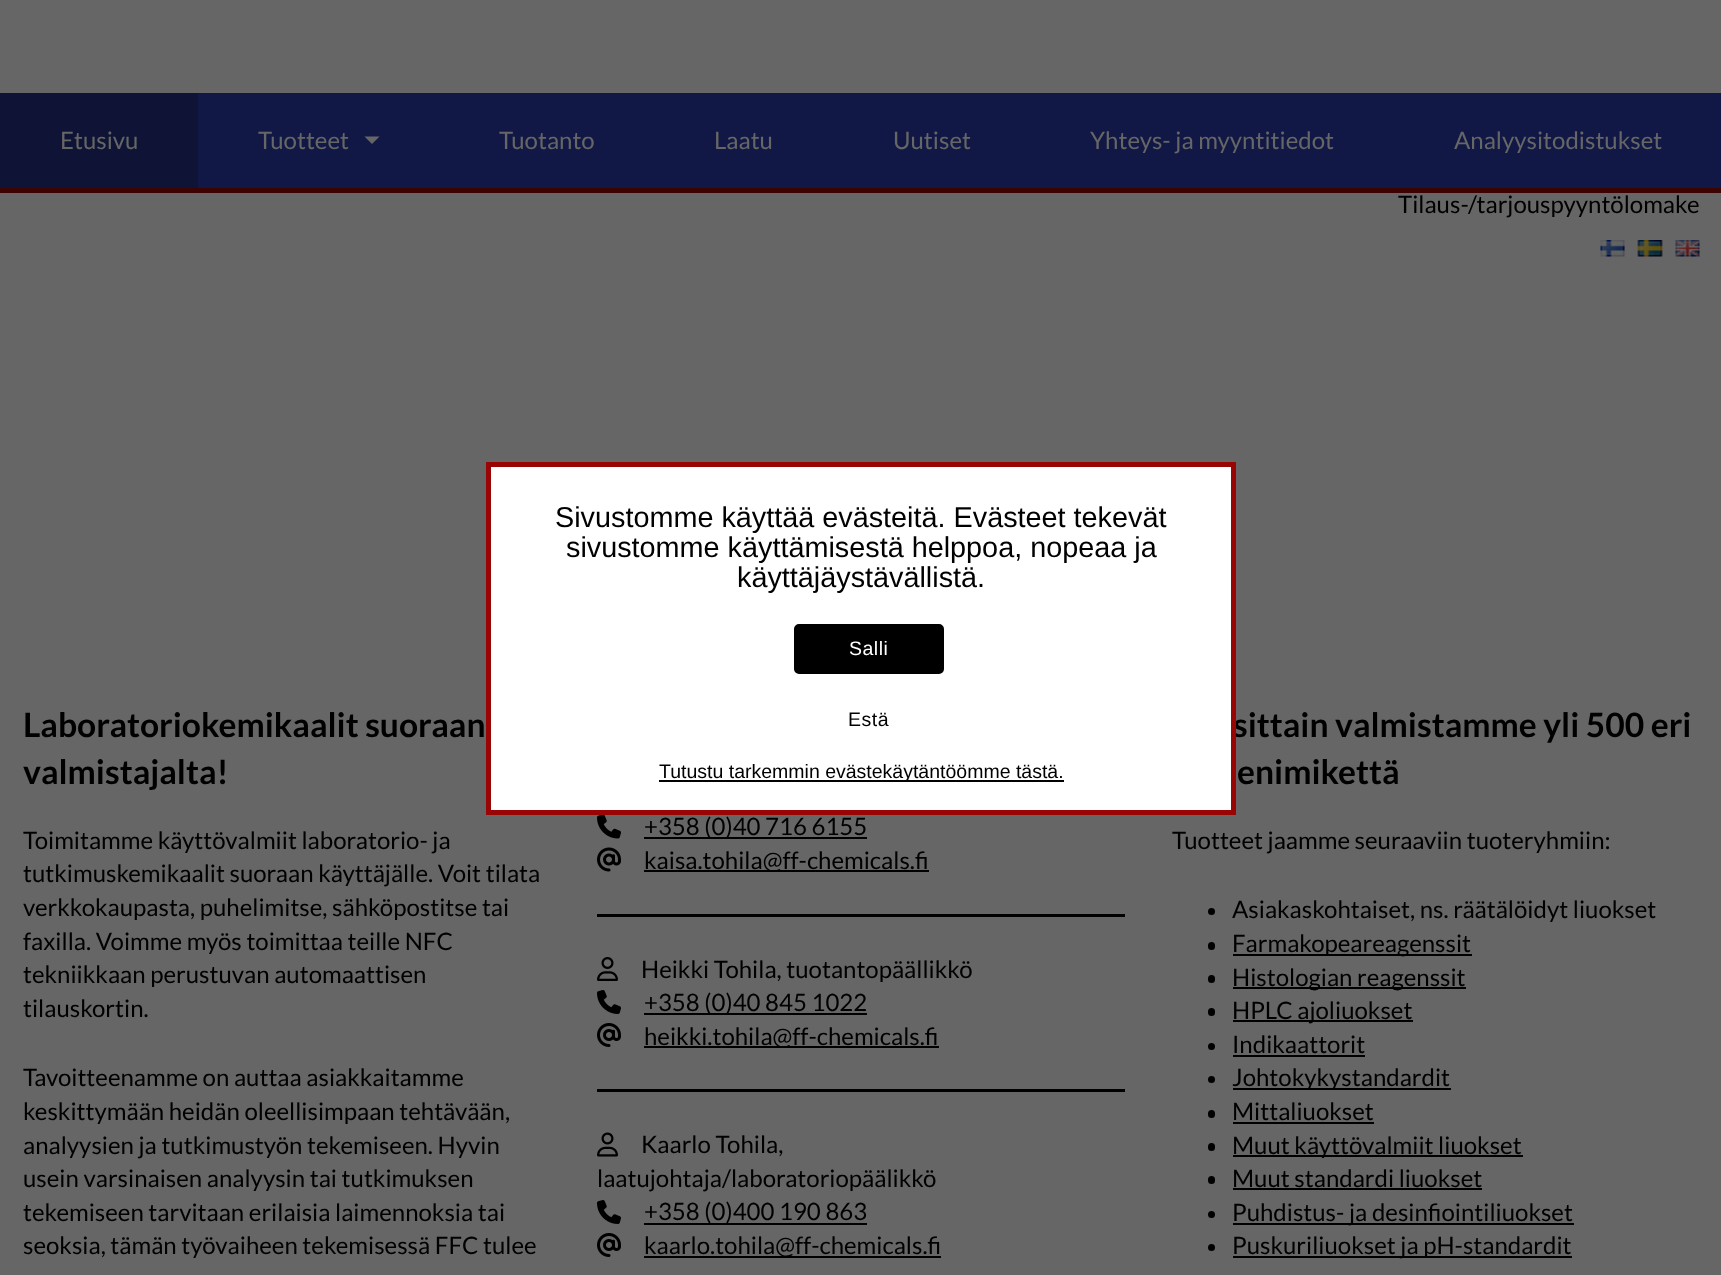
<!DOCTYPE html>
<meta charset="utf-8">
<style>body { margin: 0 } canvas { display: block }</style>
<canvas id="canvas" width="1721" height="1275"></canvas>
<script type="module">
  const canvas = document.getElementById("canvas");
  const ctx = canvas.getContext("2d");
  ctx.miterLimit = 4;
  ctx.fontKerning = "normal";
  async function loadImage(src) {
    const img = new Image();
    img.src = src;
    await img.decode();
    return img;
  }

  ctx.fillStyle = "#666666";
  ctx.fillRect(0, 0, 1721, 1275);
  ctx.fillStyle = "#121845";
  ctx.fillRect(198, 93, 1523, 95);
  ctx.fillStyle = "#3d0202";
  ctx.fillRect(0, 188, 1721, 5);
  ctx.fillStyle = "#0f1436";
  ctx.fillRect(0, 93, 198, 95);
  ctx.font = "24px Lato";
  ctx.fillStyle = "#666666";
  ctx.fillText("Etusivu", 60, 149);
  ctx.fillText("Tuotteet", 258, 149);
  ctx.beginPath();
  ctx.moveTo(364.5, 136.5);
  ctx.lineTo(379.5, 136.5);
  ctx.lineTo(372, 144);
  ctx.closePath();
  ctx.fill();
  ctx.fillText("Tuotanto", 499, 149);
  ctx.fillText("Laatu", 714, 149);
  ctx.fillText("Uutiset", 893, 149);
  ctx.fillText("Yhteys- ja myyntitiedot", 1090, 149);
  ctx.fillText("Analyysitodistukset", 1454, 149);
  ctx.drawImage(await loadImage("img1.png"), 1600, 240, 25, 17);
  ctx.drawImage(await loadImage("img2.png"), 1637, 240, 26, 17);
  ctx.drawImage(await loadImage("img3.png"), 1675, 240, 25, 17);
  ctx.fillStyle = "#000000";
  ctx.fillText("Tilaus-/tarjouspyyntölomake", 1398, 213);
  ctx.font = "bold 33.6px Lato";
  ctx.fillText("Laboratoriokemikaalit suoraan", 23, 737);
  ctx.fillText("valmistajalta!", 23, 784);
  ctx.font = "24px Lato";
  ctx.fillText("Toimitamme käyttövalmiit laboratorio- ja", 23, 849);
  ctx.fillText("tutkimuskemikaalit suoraan käyttäjälle. Voit tilata", 23, 882);
  ctx.fillText("verkkokaupasta, puhelimitse, sähköpostitse tai", 23, 916);
  ctx.fillText("faxilla. Voimme myös toimittaa teille NFC", 23, 950);
  ctx.fillText("tekniikkaan perustuvan automaattisen", 23, 983);
  ctx.fillText("tilauskortin.", 23, 1017);
  ctx.fillText("Tavoitteenamme on auttaa asiakkaitamme", 23, 1086);
  ctx.fillText("keskittymään heidän oleellisimpaan tehtävään,", 23, 1120);
  ctx.fillText("analyysien ja tutkimustyön tekemiseen. Hyvin", 23, 1154);
  ctx.fillText("usein varsinaisen analyysin tai tutkimuksen", 23, 1187);
  ctx.fillText("tekemiseen tarvitaan erilaisia laimennoksia tai", 23, 1221);
  ctx.fillText("seoksia, tämän työvaiheen tekemisessä FFC tulee", 23, 1254);
  ctx.drawImage(await loadImage("img4.png"), 597, 815, 24, 24);
  ctx.fillRect(644, 837, 223, 2);
  ctx.fillText("+358 (0)40 716 6155", 644, 835);
  ctx.drawImage(await loadImage("img5.png"), 597, 847, 24, 25);
  ctx.fillRect(644, 870, 285, 2);
  ctx.fillText("kaisa.tohila@ff-chemicals.fi", 644, 869);
  ctx.fillRect(597, 914, 528, 3);
  ctx.drawImage(await loadImage("img6.png"), 597, 957, 21, 24);
  ctx.fillText("Heikki Tohila, tuotantopäällikkö", 641, 978);
  ctx.drawImage(await loadImage("img7.png"), 597, 990, 24, 24);
  ctx.fillRect(644, 1013, 223, 2);
  ctx.fillText("+358 (0)40 845 1022", 644, 1011);
  ctx.drawImage(await loadImage("img8.png"), 597, 1023, 24, 24);
  ctx.fillRect(644, 1046, 295, 2);
  ctx.fillText("heikki.tohila@ff-chemicals.fi", 644, 1045);
  ctx.fillRect(597, 1089, 528, 3);
  ctx.drawImage(await loadImage("img9.png"), 597, 1132, 21, 25);
  ctx.fillText("Kaarlo Tohila,", 641, 1153);
  ctx.fillText("laatujohtaja/laboratoriopäälikkö", 597, 1187);
  ctx.drawImage(await loadImage("img7.png"), 597, 1200, 24, 24);
  ctx.fillRect(644, 1223, 223, 2);
  ctx.fillText("+358 (0)400 190 863", 644, 1220);
  ctx.drawImage(await loadImage("img8.png"), 597, 1233, 24, 24);
  ctx.fillRect(644, 1256, 297, 2);
  ctx.fillText("kaarlo.tohila@ff-chemicals.fi", 644, 1254);
  ctx.font = "bold 33.6px Lato";
  ctx.fillText("sittain valmistamme yli 500 eri", 1233, 737);
  ctx.fillText("enimikettä", 1237, 784);
  ctx.font = "24px Lato";
  ctx.fillText("Tuotteet jaamme seuraaviin tuoteryhmiin:", 1172, 849);
  ctx.beginPath();
  ctx.arc(1211.5, 911.5, 3.5, 0, Math.PI * 2);
  ctx.fill();
  ctx.fillText("Asiakaskohtaiset, ns. räätälöidyt liuokset", 1232, 918);
  ctx.beginPath();
  ctx.roundRect(1208, 942, 7, 8, 3.5);
  ctx.fill();
  ctx.fillRect(1233, 954, 239, 2);
  ctx.fillText("Farmakopeareagenssit", 1232, 952);
  ctx.beginPath();
  ctx.roundRect(1208, 975, 7, 8, 3.5);
  ctx.fill();
  ctx.fillRect(1233, 987, 233, 2);
  ctx.fillText("Histologian reagenssit", 1232, 986);
  ctx.beginPath();
  ctx.roundRect(1208, 1008, 7, 8, 3.5);
  ctx.fill();
  ctx.fillRect(1233, 1020, 180, 2);
  ctx.fillText("HPLC ajoliuokset", 1232, 1019);
  ctx.beginPath();
  ctx.arc(1211.5, 1046.5, 3.5, 0, Math.PI * 2);
  ctx.fill();
  ctx.fillText("Indikaattorit", 1232, 1053);
  ctx.fillRect(1233, 1055, 132, 2);
  ctx.beginPath();
  ctx.arc(1211.5, 1079.5, 3.5, 0, Math.PI * 2);
  ctx.fill();
  ctx.fillRect(1233, 1088, 218, 2);
  ctx.fillText("Johtokykystandardit", 1232, 1086);
  ctx.beginPath();
  ctx.roundRect(1208, 1110, 7, 8, 3.5);
  ctx.fill();
  ctx.fillText("Mittaliuokset", 1232, 1120);
  ctx.fillRect(1233, 1122, 141, 2);
  ctx.beginPath();
  ctx.roundRect(1208, 1143, 7, 8, 3.5);
  ctx.fill();
  ctx.fillRect(1233, 1155, 290, 2);
  ctx.fillText("Muut käyttövalmiit liuokset", 1232, 1154);
  ctx.beginPath();
  ctx.roundRect(1208, 1176, 7, 8, 3.5);
  ctx.fill();
  ctx.fillText("Muut standardi liuokset", 1232, 1187);
  ctx.fillRect(1233, 1188, 249, 2);
  ctx.beginPath();
  ctx.arc(1211.5, 1214.5, 3.5, 0, Math.PI * 2);
  ctx.fill();
  ctx.fillRect(1233, 1223, 341, 2);
  ctx.fillText("Puhdistus- ja desinfiointiliuokset", 1232, 1221);
  ctx.beginPath();
  ctx.arc(1211.5, 1247.5, 3.5, 0, Math.PI * 2);
  ctx.fill();
  ctx.fillRect(1233, 1256, 339, 2);
  ctx.fillText("Puskuriliuokset ja pH-standardit", 1232, 1254);
  ctx.fillStyle = "#ffffff";
  ctx.beginPath();
  ctx.rect(488.5, 464.5, 745, 348);
  ctx.fill();
  ctx.strokeStyle = "#990404";
  ctx.lineWidth = 5;
  ctx.stroke();
  ctx.font = "28.8px Liberation Sans";
  ctx.fillStyle = "#000000";
  ctx.fillText("Sivustomme käyttää evästeitä. Evästeet tekevät", 555, 527);
  ctx.fillText("sivustomme käyttämisestä helppoa, nopeaa ja", 566, 557);
  ctx.fillText("käyttäjäystävällistä.", 737, 587);
  ctx.beginPath();
  ctx.roundRect(795.5, 625.5, 147, 47, 3.5);
  ctx.fill();
  ctx.strokeStyle = "#000000";
  ctx.lineWidth = 3;
  ctx.stroke();
  ctx.letterSpacing = "0.5px";
  ctx.font = "19.5px Liberation Sans";
  ctx.fillStyle = "#ffffff";
  ctx.fillText("Salli", 849, 655);
  ctx.fillStyle = "#000000";
  ctx.fillText("Estä", 848, 726);
  ctx.fillRect(659, 780, 405, 2);
  ctx.letterSpacing = "0px";
  ctx.fillText("Tutustu tarkemmin evästekäytäntöömme tästä.", 659, 778);
</script>
